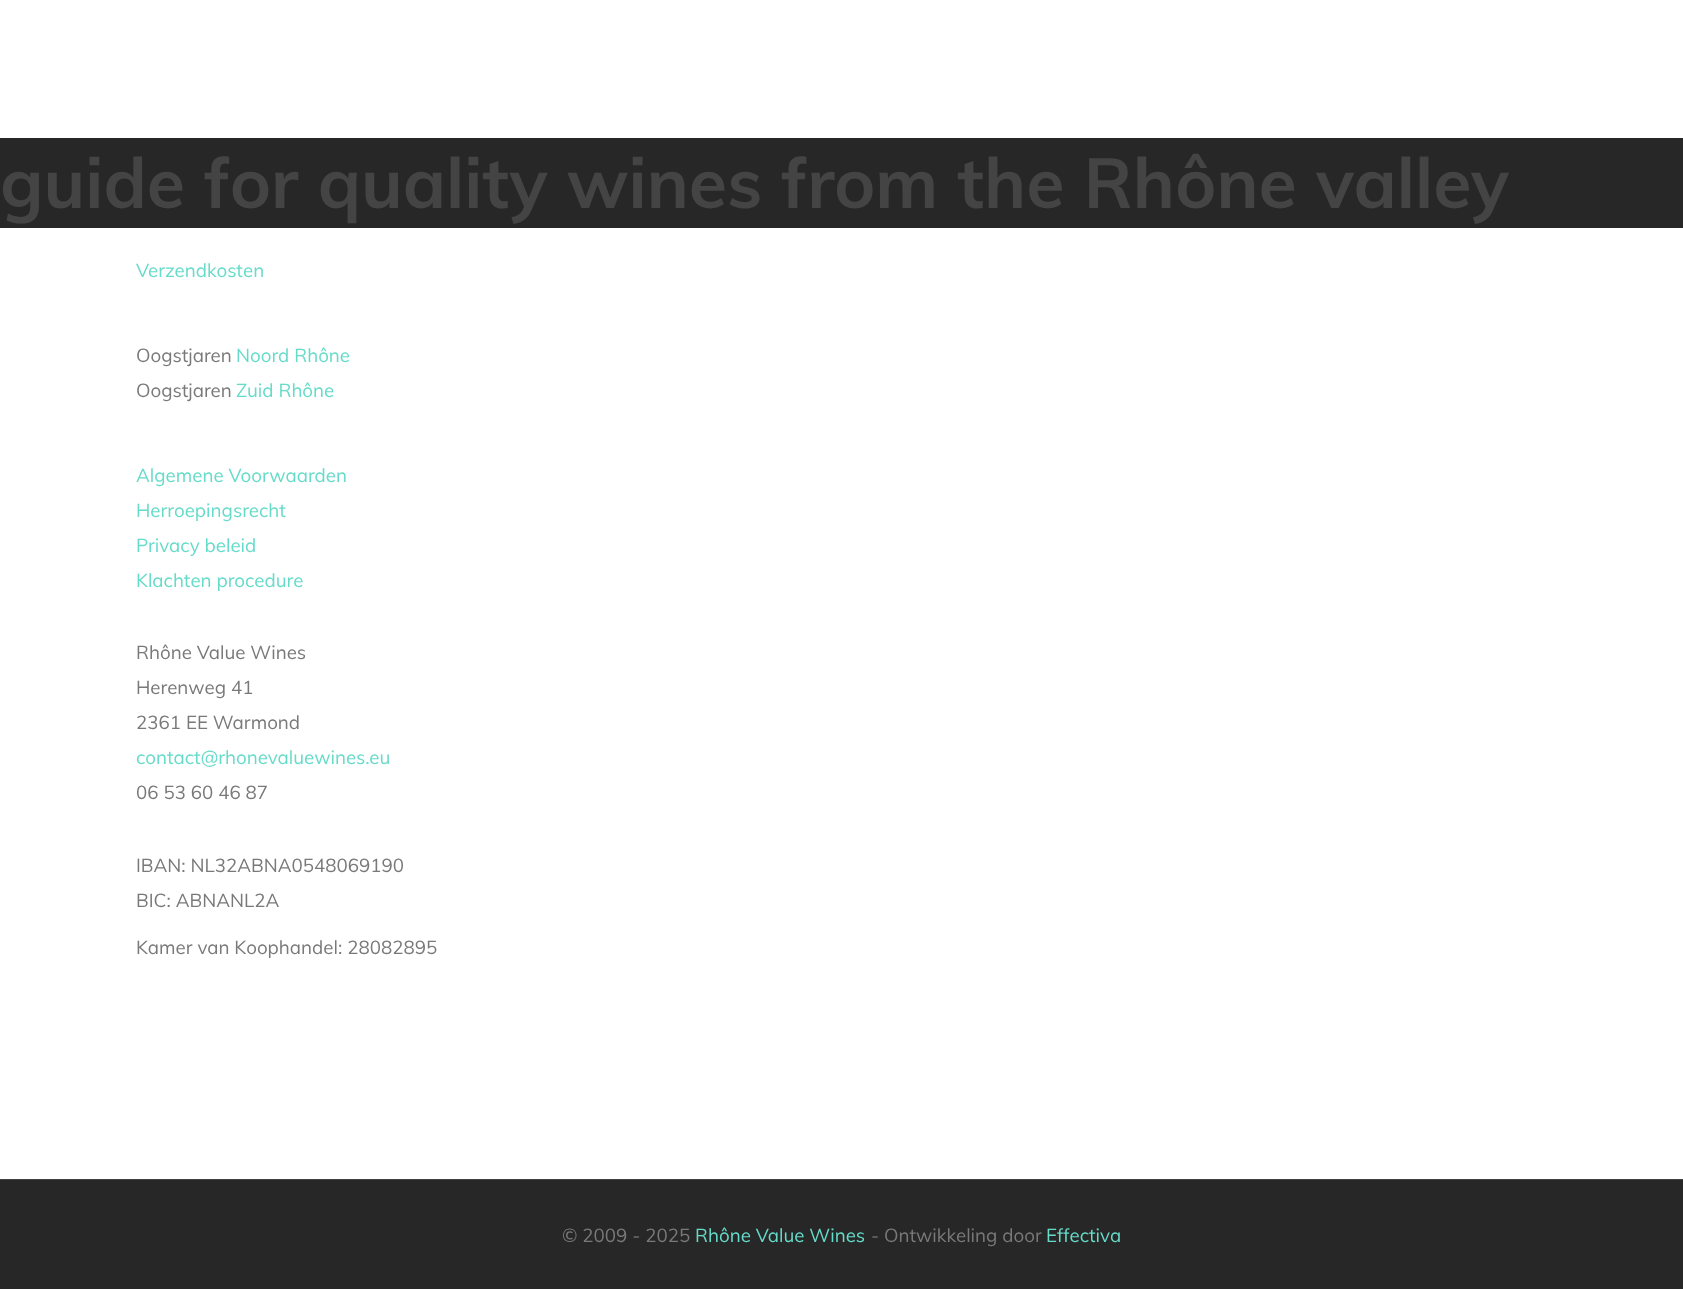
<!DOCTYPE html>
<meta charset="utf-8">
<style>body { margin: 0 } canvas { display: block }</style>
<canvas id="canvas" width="1683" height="1289"></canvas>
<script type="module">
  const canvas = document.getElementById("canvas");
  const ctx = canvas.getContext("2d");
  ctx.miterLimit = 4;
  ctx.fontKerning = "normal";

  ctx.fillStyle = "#ffffff";
  ctx.fillRect(0, 0, 1683, 1289);
  ctx.fillStyle = "#272727";
  ctx.fillRect(0, 138, 1683, 90);
  ctx.font = "bold 70px Muli";
  ctx.fillStyle = "#444444";
  ctx.fillText("guide for quality wines from the Rhône valley", 0, 208);
  ctx.font = "18.75px Muli";
  ctx.fillStyle = "#66dbc9";
  ctx.fillText("Verzendkosten", 136, 277);
  ctx.fillStyle = "#797979";
  ctx.fillText("Oogstjaren", 136, 362);
  ctx.fillStyle = "#66dbc9";
  ctx.fillText("Noord Rhône", 236, 362);
  ctx.fillStyle = "#797979";
  ctx.fillText("Oogstjaren", 136, 397);
  ctx.fillStyle = "#66dbc9";
  ctx.fillText("Zuid Rhône", 236, 397);
  ctx.fillText("Algemene Voorwaarden", 136, 482);
  ctx.fillText("Herroepingsrecht", 136, 517);
  ctx.fillText("Privacy beleid", 136, 552);
  ctx.fillText("Klachten procedure", 136, 587);
  ctx.fillStyle = "#797979";
  ctx.fillText("Rhône Value Wines", 136, 659);
  ctx.fillText("Herenweg 41", 136, 694);
  ctx.fillText("2361 EE Warmond", 136, 729);
  ctx.fillStyle = "#66dbc9";
  ctx.fillText("contact@rhonevaluewines.eu", 136, 764);
  ctx.fillStyle = "#797979";
  ctx.fillText("06 53 60 46 87", 136, 799);
  ctx.fillText("IBAN: NL32ABNA0548069190", 136, 872);
  ctx.fillText("BIC: ABNANL2A", 136, 907);
  ctx.fillText("Kamer van Koophandel: 28082895", 136, 954);
  ctx.fillStyle = "#272727";
  ctx.fillRect(0, 1180, 1683, 109);
  ctx.fillStyle = "#424242";
  ctx.fillRect(0, 1179, 1683, 1);
  ctx.fillStyle = "#797979";
  ctx.fillText("© 2009 - 2025", 562, 1242);
  ctx.fillStyle = "#66dbc9";
  ctx.fillText("Rhône Value Wines", 695, 1242);
  ctx.fillStyle = "#797979";
  ctx.fillText("- Ontwikkeling door", 871, 1242);
  ctx.fillStyle = "#66dbc9";
  ctx.fillText("Effectiva", 1046, 1242);
</script>
